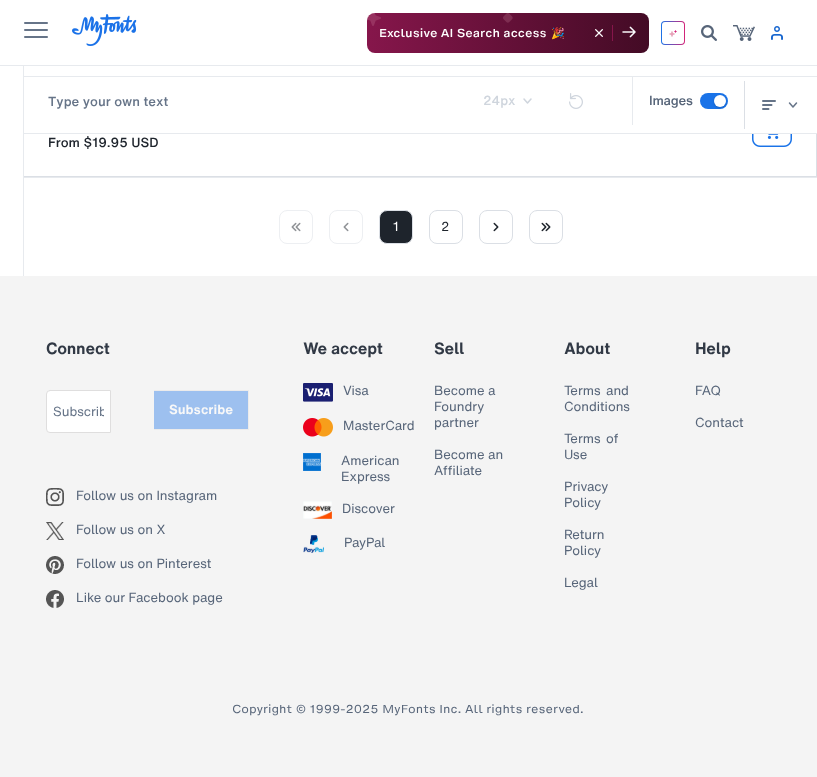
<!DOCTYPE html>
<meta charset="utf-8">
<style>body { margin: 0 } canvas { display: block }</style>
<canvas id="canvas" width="817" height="777"></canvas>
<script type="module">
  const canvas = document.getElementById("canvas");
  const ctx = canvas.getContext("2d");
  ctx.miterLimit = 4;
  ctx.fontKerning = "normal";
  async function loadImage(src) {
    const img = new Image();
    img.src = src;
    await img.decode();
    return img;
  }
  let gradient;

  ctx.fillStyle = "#ffffff";
  ctx.fillRect(0, 0, 817, 777);
  ctx.fillStyle = "#e7eaee";
  ctx.fillRect(0, 65, 817, 1);
  ctx.drawImage(await loadImage("img1.png"), 24, 22, 24, 16);
  ctx.drawImage(await loadImage("img2.png"), 72, 14, 65, 32);
  gradient = ctx.createLinearGradient(367, 33, 649, 33);
  gradient.addColorStop(0, "#86164b");
  gradient.addColorStop(1, "#430b25");
  ctx.fillStyle = gradient;
  ctx.beginPath();
  ctx.roundRect(367, 13, 282, 40, 8);
  ctx.fill();
  ctx.drawImage(await loadImage("img3.png"), 367, 13, 14, 13);
  ctx.drawImage(await loadImage("img4.png"), 503, 13, 10, 10);
  ctx.font = "500 11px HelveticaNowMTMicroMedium";
  ctx.fillStyle = "#ffffff";
  ctx.fillText("Exclusive AI Search access", 379, 37);
  ctx.font = "11px Noto Color Emoji";
  ctx.fillText("🎉", 551, 37);
  ctx.drawImage(await loadImage("img5.png"), 595, 29, 8, 8);
  ctx.fillStyle = "#86164b";
  ctx.fillRect(612, 25, 1, 16);
  ctx.drawImage(await loadImage("img6.png"), 622, 26, 14, 12);
  gradient = ctx.createLinearGradient(661, 33, 685, 33);
  gradient.addColorStop(0, "#1a73e8");
  gradient.addColorStop(1, "#d52377");
  ctx.fillStyle = gradient;
  ctx.beginPath();
  ctx.roundRect(661, 21, 24, 24, 4);
  ctx.fill();
  ctx.fillStyle = "#ffffff";
  ctx.beginPath();
  ctx.roundRect(662, 22, 22, 22, 3);
  ctx.fill();
  ctx.drawImage(await loadImage("img7.png"), 669, 30, 8, 7);
  ctx.drawImage(await loadImage("img8.png"), 701, 25, 16, 16);
  ctx.drawImage(await loadImage("img9.png"), 733, 25, 22, 16);
  ctx.drawImage(await loadImage("img10.png"), 771, 26, 12, 14);
  ctx.fillStyle = "#e7eaee";
  ctx.fillRect(23, 66, 1, 210);
  ctx.fillRect(24, 76, 793, 1);
  ctx.fillRect(24, 133, 793, 1);
  ctx.font = "500 13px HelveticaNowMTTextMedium";
  ctx.fillStyle = "#667488";
  ctx.fillText("Type your own text", 48, 106);
  ctx.fillStyle = "#cfd5dd";
  ctx.fillText("24px", 483, 105);
  ctx.beginPath();
  ctx.moveTo(524, 99);
  ctx.lineTo(527.5, 103);
  ctx.lineTo(531, 99);
  ctx.strokeStyle = "#cfd5dd";
  ctx.lineWidth = 1.5;
  ctx.lineCap = "round";
  ctx.lineJoin = "round";
  ctx.stroke();
  ctx.drawImage(await loadImage("img11.png"), 569, 93, 14, 16);
  ctx.fillStyle = "#e7eaee";
  ctx.fillRect(632, 77, 1, 48);
  ctx.letterSpacing = "-0.25px";
  ctx.fillStyle = "#576579";
  ctx.fillText("Images", 649, 105);
  ctx.fillStyle = "#1a73e8";
  ctx.beginPath();
  ctx.roundRect(700, 93, 28, 16, 8);
  ctx.fill();
  ctx.fillStyle = "rgba(0, 0, 0, 0.16)";
  ctx.filter = "blur(1px)";
  ctx.beginPath();
  ctx.roundRect(714, 96, 12, 12, 6);
  ctx.fill();
  ctx.filter = "none";
  ctx.fillStyle = "#ffffff";
  ctx.beginPath();
  ctx.arc(720, 101, 6, 0, Math.PI * 2);
  ctx.fill();
  ctx.fillStyle = "#dbdfe5";
  ctx.fillRect(744, 81, 1, 48);
  ctx.beginPath();
  ctx.moveTo(763, 101);
  ctx.lineTo(775, 101);
  ctx.moveTo(763, 105);
  ctx.lineTo(771.5, 105);
  ctx.moveTo(763, 109);
  ctx.lineTo(768.5, 109);
  ctx.strokeStyle = "#667488";
  ctx.lineWidth = 2;
  ctx.stroke();
  ctx.beginPath();
  ctx.moveTo(789.5, 103);
  ctx.lineTo(793, 107);
  ctx.lineTo(796.5, 103);
  ctx.lineWidth = 1.5;
  ctx.stroke();
  ctx.fillRect(816, 134, 1, 43);
  ctx.fillRect(24, 176, 793, 1);
  ctx.letterSpacing = "0px";
  ctx.fillStyle = "#1e242c";
  ctx.fillText("From $19.95 USD", 48, 147);
  ctx.drawImage(await loadImage("img12.png"), 752, 134, 40, 13);
  ctx.fillStyle = "#e7eaee";
  ctx.fillRect(24, 177, 793, 1);
  ctx.beginPath();
  ctx.roundRect(279.5, 210.5, 33, 33, 7.5);
  ctx.strokeStyle = "#edeff2";
  ctx.lineWidth = 1;
  ctx.lineJoin = "miter";
  ctx.stroke();
  ctx.drawImage(await loadImage("img13.png"), 291, 222, 6, 10);
  ctx.drawImage(await loadImage("img14.png"), 295, 222, 6, 10);
  ctx.beginPath();
  ctx.roundRect(329.5, 210.5, 33, 33, 7.5);
  ctx.stroke();
  ctx.drawImage(await loadImage("img13.png"), 343, 222, 6, 10);
  ctx.fillStyle = "#1e242c";
  ctx.beginPath();
  ctx.roundRect(379.5, 210.5, 33, 33, 7.5);
  ctx.fill();
  ctx.strokeStyle = "#dbdfe5";
  ctx.stroke();
  ctx.font = "13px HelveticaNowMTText";
  ctx.fillStyle = "#ffffff";
  ctx.fillText("1", 393, 231);
  ctx.beginPath();
  ctx.roundRect(429.5, 210.5, 33, 33, 7.5);
  ctx.stroke();
  ctx.fillStyle = "#1e242c";
  ctx.fillText("2", 441, 231);
  ctx.beginPath();
  ctx.roundRect(479.5, 210.5, 33, 33, 7.5);
  ctx.stroke();
  ctx.drawImage(await loadImage("img15.png"), 493, 222, 6, 10);
  ctx.beginPath();
  ctx.roundRect(529.5, 210.5, 33, 33, 7.5);
  ctx.stroke();
  ctx.drawImage(await loadImage("img15.png"), 541, 222, 6, 10);
  ctx.drawImage(await loadImage("img16.png"), 545, 222, 6, 10);
  ctx.fillStyle = "#f4f4f4";
  ctx.fillRect(0, 276, 817, 501);
  ctx.letterSpacing = "-0.25px";
  ctx.font = "bold 16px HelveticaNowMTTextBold";
  ctx.fillStyle = "#313945";
  ctx.fillText("Connect", 46, 354);
  ctx.fillStyle = "#ffffff";
  ctx.beginPath();
  ctx.roundRect(46.5, 390.5, 64, 42, [3.5, 0, 0, 3.5]);
  ctx.fill();
  ctx.strokeStyle = "#dfdede";
  ctx.stroke();
  ctx.save();
  ctx.beginPath();
  ctx.rect(53, 402, 51, 19);
  ctx.clip();
  ctx.letterSpacing = "0px";
  ctx.font = "13px HelveticaNowMTText";
  ctx.fillStyle = "#667488";
  ctx.fillText("Subscrib", 53, 416);
  ctx.restore();
  ctx.fillStyle = "#9dc0ef";
  ctx.fillRect(154, 391, 94, 38);
  ctx.fillStyle = "#ecebeb";
  ctx.fillRect(154, 390, 95, 1);
  ctx.fillRect(248, 390, 1, 40);
  ctx.fillRect(154, 429, 95, 1);
  ctx.letterSpacing = "0px";
  ctx.font = "bold 13px HelveticaNowMTTextBold";
  ctx.fillStyle = "#f8f8f8";
  ctx.fillText("Subscribe", 169, 414);
  ctx.drawImage(await loadImage("img17.png"), 46, 488, 18, 18);
  ctx.font = "13px HelveticaNowMTText";
  ctx.fillStyle = "#576579";
  ctx.fillText("Follow us on Instagram", 76, 500);
  ctx.drawImage(await loadImage("img18.png"), 46, 522, 18, 18);
  ctx.fillText("Follow us on X", 76, 534);
  ctx.drawImage(await loadImage("img19.png"), 46, 556, 18, 18);
  ctx.fillText("Follow us on Pinterest", 76, 568);
  ctx.drawImage(await loadImage("img20.png"), 46, 590, 18, 18);
  ctx.fillText("Like our Facebook page", 76, 602);
  ctx.letterSpacing = "-0.25px";
  ctx.font = "bold 16px HelveticaNowMTTextBold";
  ctx.fillStyle = "#313945";
  ctx.fillText("We accept", 303, 354);
  ctx.drawImage(await loadImage("img21.png"), 303, 383, 30, 19);
  ctx.letterSpacing = "0px";
  ctx.font = "13px HelveticaNowMTText";
  ctx.fillStyle = "#576579";
  ctx.fillText("Visa", 343, 395);
  ctx.drawImage(await loadImage("img22.png"), 303, 418, 30, 19);
  ctx.fillText("MasterCard", 343, 430);
  ctx.drawImage(await loadImage("img23.png"), 303, 453, 18, 18);
  ctx.fillText("American", 341, 465);
  ctx.fillText("Express", 341, 481);
  ctx.drawImage(await loadImage("img24.png"), 303, 501, 29, 18);
  ctx.fillText("Discover", 342, 513);
  ctx.drawImage(await loadImage("img25.png"), 303, 535, 21, 18);
  ctx.fillText("PayPal", 344, 547);
  ctx.letterSpacing = "-0.25px";
  ctx.font = "bold 16px HelveticaNowMTTextBold";
  ctx.fillStyle = "#313945";
  ctx.fillText("Sell", 434, 354);
  ctx.letterSpacing = "0px";
  ctx.font = "13px HelveticaNowMTText";
  ctx.fillStyle = "#576579";
  ctx.fillText("Become a", 434, 395);
  ctx.fillText("Foundry", 434, 411);
  ctx.fillText("partner", 434, 427);
  ctx.fillText("Become an", 434, 459);
  ctx.fillText("Affiliate", 434, 475);
  ctx.letterSpacing = "-0.25px";
  ctx.font = "bold 16px HelveticaNowMTTextBold";
  ctx.fillStyle = "#313945";
  ctx.fillText("About", 564, 354);
  ctx.letterSpacing = "0px";
  ctx.wordSpacing = "2px";
  ctx.font = "13px HelveticaNowMTText";
  ctx.fillStyle = "#576579";
  ctx.fillText("Terms and", 564, 395);
  ctx.wordSpacing = "0px";
  ctx.fillText("Conditions", 564, 411);
  ctx.wordSpacing = "2px";
  ctx.fillText("Terms of", 564, 443);
  ctx.wordSpacing = "0px";
  ctx.fillText("Use", 564, 459);
  ctx.fillText("Privacy", 564, 491);
  ctx.fillText("Policy", 564, 507);
  ctx.fillText("Return", 564, 539);
  ctx.fillText("Policy", 564, 555);
  ctx.fillText("Legal", 564, 587);
  ctx.letterSpacing = "-0.25px";
  ctx.font = "bold 16px HelveticaNowMTTextBold";
  ctx.fillStyle = "#313945";
  ctx.fillText("Help", 695, 354);
  ctx.letterSpacing = "0px";
  ctx.font = "13px HelveticaNowMTText";
  ctx.fillStyle = "#576579";
  ctx.fillText("FAQ", 695, 395);
  ctx.fillText("Contact", 695, 427);
  ctx.font = "11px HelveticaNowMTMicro";
  ctx.fillText("Copyright © 1999-2025 MyFonts Inc. All rights reserved.", 232, 713);
</script>
